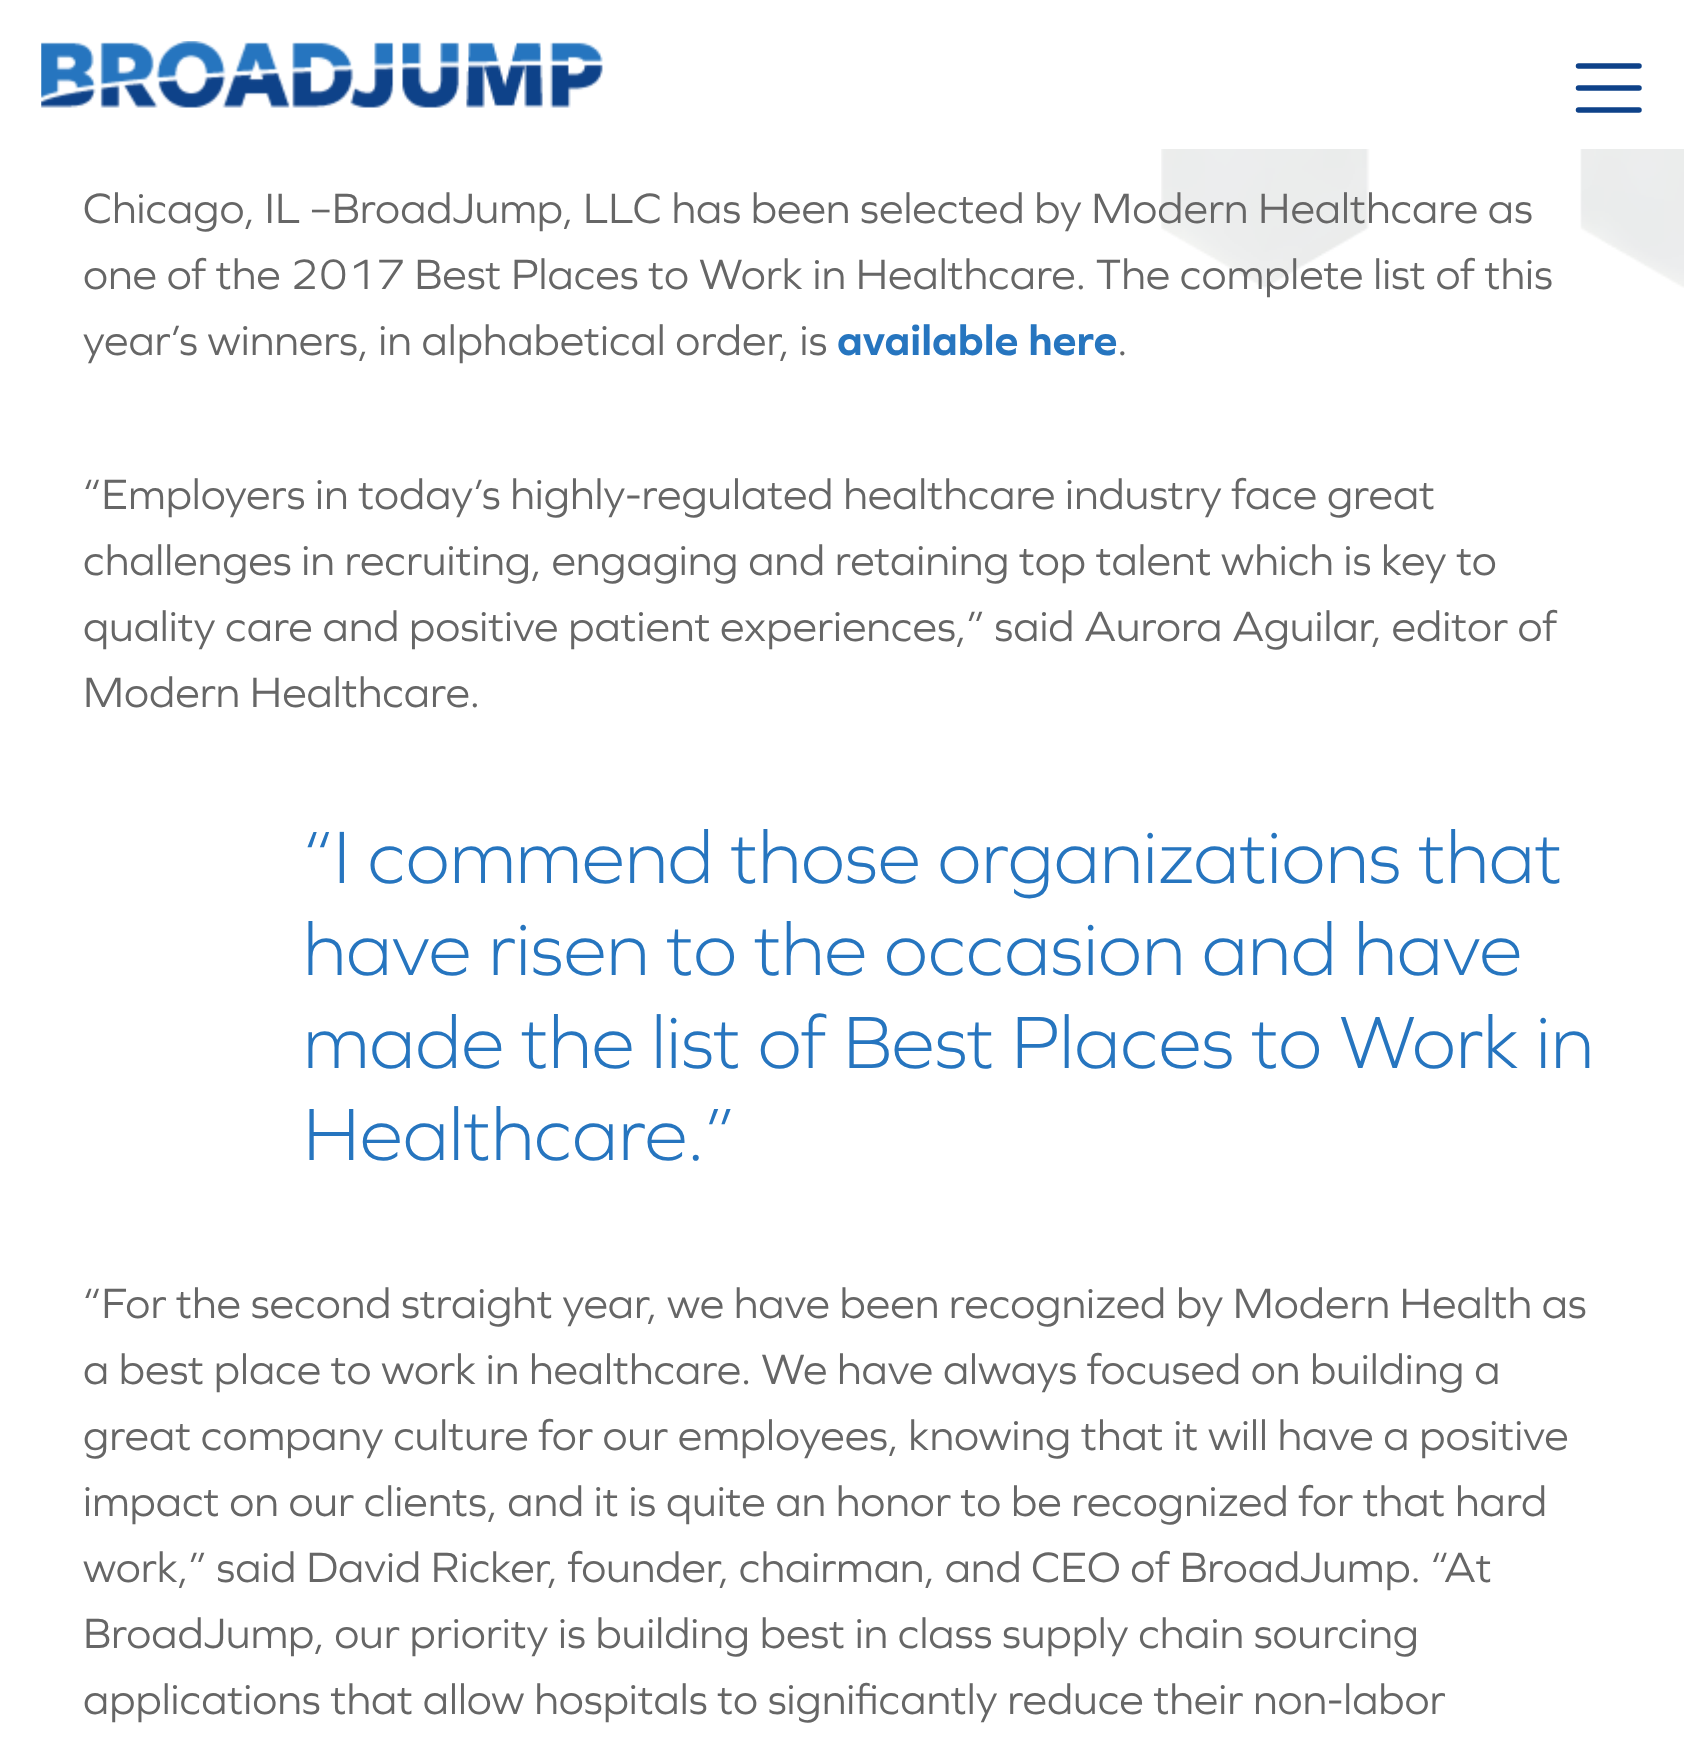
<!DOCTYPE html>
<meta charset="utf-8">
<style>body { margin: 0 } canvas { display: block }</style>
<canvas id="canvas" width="1684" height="1760"></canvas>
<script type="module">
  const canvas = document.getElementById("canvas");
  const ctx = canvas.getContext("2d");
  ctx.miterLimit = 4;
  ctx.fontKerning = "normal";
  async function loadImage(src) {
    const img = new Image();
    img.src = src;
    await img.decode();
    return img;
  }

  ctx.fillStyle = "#ffffff";
  ctx.fillRect(0, 0, 1684, 1760);
  ctx.drawImage(await loadImage("img1.png"), 41, 41, 562, 67);
  ctx.beginPath();
  ctx.moveTo(1578.5, 66);
  ctx.lineTo(1639, 66);
  ctx.moveTo(1578.5, 88);
  ctx.lineTo(1639, 88);
  ctx.moveTo(1578.5, 110);
  ctx.lineTo(1639, 110);
  ctx.strokeStyle = "#0e4289";
  ctx.lineWidth = 5.5;
  ctx.lineCap = "round";
  ctx.stroke();
  ctx.drawImage(await loadImage("img2.png"), 1161, 149, 523, 139);
  ctx.font = "44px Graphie";
  ctx.fillStyle = "#666666";
  ctx.fillText("Chicago, IL –BroadJump, LLC has been selected by Modern Healthcare as", 83, 223);
  ctx.fillText("one of the 2017 Best Places to Work in Healthcare. The complete list of this", 83, 289);
  ctx.fillText("year’s winners, in alphabetical order, is", 83, 355);
  ctx.font = "bold 44px Graphie";
  ctx.fillStyle = "#2675bf";
  ctx.fillText("available here", 837, 355);
  ctx.font = "44px Graphie";
  ctx.fillStyle = "#666666";
  ctx.fillText(".", 1117, 355);
  ctx.fillText("“Employers in today’s highly-regulated healthcare industry face great", 83, 509);
  ctx.fillText("challenges in recruiting, engaging and retaining top talent which is key to", 83, 575);
  ctx.fillText("quality care and positive patient experiences,” said Aurora Aguilar, editor of", 83, 641);
  ctx.fillText("Modern Healthcare.", 83, 707);
  ctx.font = "300 77px Graphie";
  ctx.fillStyle = "#2675bf";
  ctx.fillText("“I commend those organizations that", 303, 883);
  ctx.fillText("have risen to the occasion and have", 303, 975);
  ctx.fillText("made the list of Best Places to Work in", 303, 1068);
  ctx.fillText("Healthcare.”", 303, 1160);
  ctx.font = "44px Graphie";
  ctx.fillStyle = "#666666";
  ctx.fillText("“For the second straight year, we have been recognized by Modern Health as", 83, 1318);
  ctx.fillText("a best place to work in healthcare. We have always focused on building a", 83, 1384);
  ctx.fillText("great company culture for our employees, knowing that it will have a positive", 83, 1450);
  ctx.fillText("impact on our clients, and it is quite an honor to be recognized for that hard", 83, 1516);
  ctx.fillText("work,” said David Ricker, founder, chairman, and CEO of BroadJump. “At", 83, 1582);
  ctx.fillText("BroadJump, our priority is building best in class supply chain sourcing", 83, 1648);
  ctx.fillText("applications that allow hospitals to significantly reduce their non-labor", 83, 1714);
</script>
